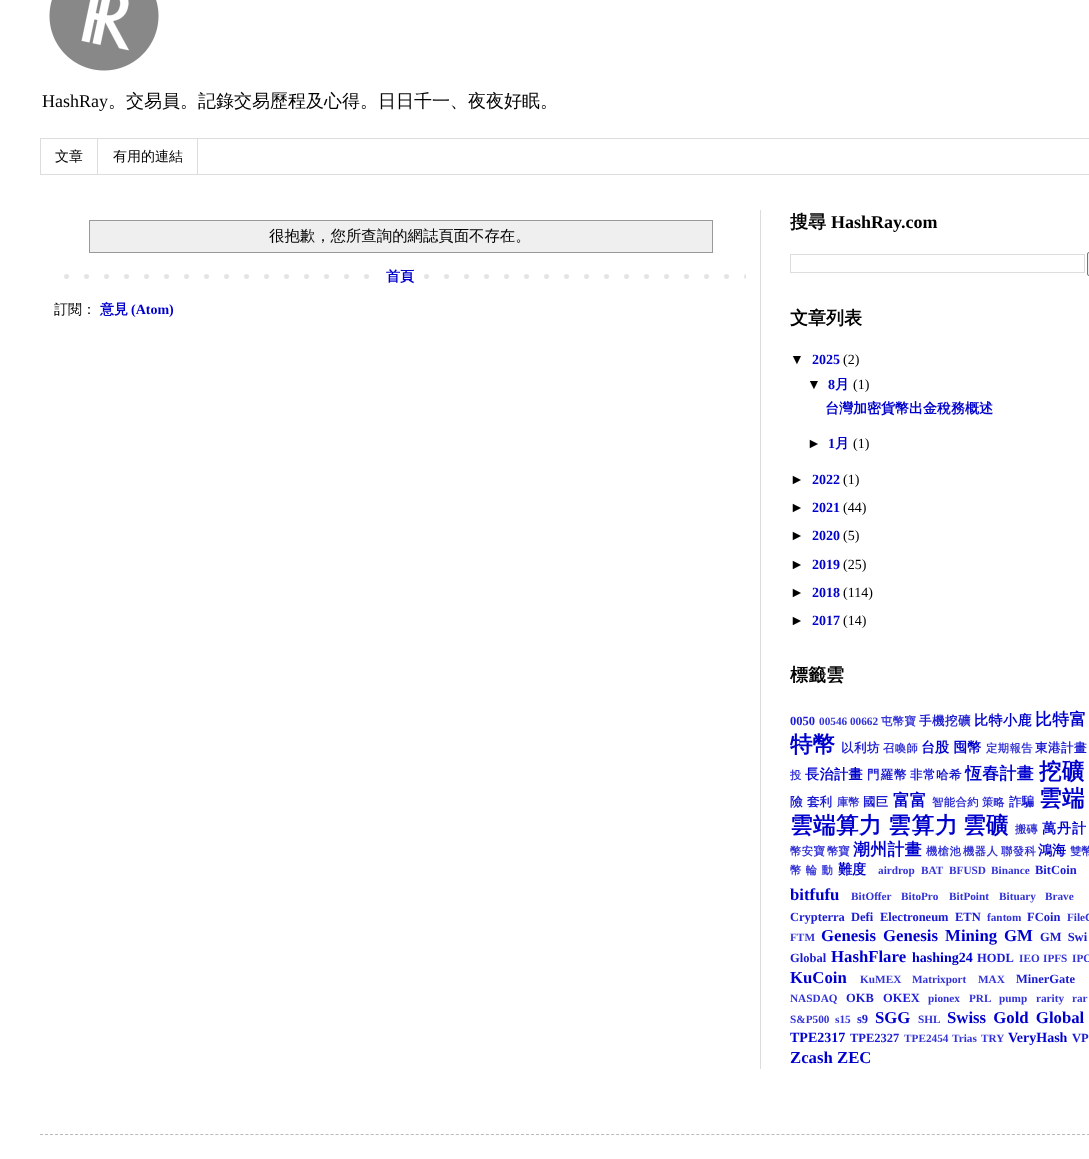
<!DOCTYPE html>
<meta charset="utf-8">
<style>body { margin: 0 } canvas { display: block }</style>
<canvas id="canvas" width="1089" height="1159"></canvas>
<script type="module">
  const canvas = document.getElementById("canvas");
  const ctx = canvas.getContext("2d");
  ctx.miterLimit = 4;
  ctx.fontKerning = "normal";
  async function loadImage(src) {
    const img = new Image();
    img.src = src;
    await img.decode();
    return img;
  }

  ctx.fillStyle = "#ffffff";
  ctx.fillRect(0, 0, 1089, 1159);
  ctx.drawImage(await loadImage("img1.png"), 49, 0, 110, 71);
  ctx.font = "18px Liberation Serif";
  ctx.fillStyle = "#000000";
  ctx.fillText("HashRay", 42, 107);
  ctx.font = "500 18px WenQuanYi Zen Hei";
  ctx.fillText("。交易員。記錄交易歷程及心得。日日千一、夜夜好眠。", 108, 107);
  ctx.strokeStyle = "#dddddd";
  ctx.strokeRect(40.5, 138.5, 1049, 36);
  ctx.fillStyle = "#dddddd";
  ctx.fillRect(97, 139, 1, 35);
  ctx.font = "500 14px WenQuanYi Zen Hei";
  ctx.fillStyle = "#000000";
  ctx.fillText("文章", 55, 161);
  ctx.fillStyle = "#dddddd";
  ctx.fillRect(197, 139, 1, 35);
  ctx.fillStyle = "#000000";
  ctx.fillText("有用的連結", 113, 161);
  ctx.fillStyle = "#dcdcdc";
  ctx.fillRect(760, 210, 1, 859);
  ctx.strokeStyle = "#999999";
  ctx.strokeRect(89.5, 220.5, 623, 32);
  ctx.fillStyle = "#efefef";
  ctx.fillRect(90, 221, 622, 31);
  ctx.font = "500 15.4px WenQuanYi Zen Hei";
  ctx.fillStyle = "#000000";
  ctx.fillText("很抱歉，您所查詢的網誌頁面不存在。", 269, 241);
  ctx.drawImage(await loadImage("img2.png"), 64, 274, 682, 5);
  ctx.fillStyle = "#ffffff";
  ctx.fillRect(384, 274, 26, 5);
  ctx.font = "bold 14px WenQuanYi Zen Hei";
  ctx.fillStyle = "#0000cd";
  ctx.fillText("首頁", 386, 281);
  ctx.font = "500 14px WenQuanYi Zen Hei";
  ctx.fillStyle = "#000000";
  ctx.fillText("訂閱：", 54, 314);
  ctx.font = "bold 14px WenQuanYi Zen Hei";
  ctx.fillStyle = "#0000cd";
  ctx.fillText("意見", 100, 314);
  ctx.font = "bold 14px Liberation Serif";
  ctx.fillText("(Atom)", 131, 314);
  ctx.font = "bold 18px WenQuanYi Zen Hei";
  ctx.fillStyle = "#000000";
  ctx.fillText("搜尋", 790, 228);
  ctx.font = "bold 18px Liberation Serif";
  ctx.fillText("HashRay.com", 831, 228);
  ctx.strokeStyle = "#dddddd";
  ctx.strokeRect(790.5, 254.5, 294, 18);
  ctx.fillStyle = "#efefef";
  ctx.beginPath();
  ctx.roundRect(1087.5, 252.5, 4, 23, 1.5);
  ctx.fill();
  ctx.strokeStyle = "#767676";
  ctx.stroke();
  ctx.font = "bold 18px WenQuanYi Zen Hei";
  ctx.fillStyle = "#000000";
  ctx.fillText("文章列表", 790, 324);
  ctx.font = "bold 14px Liberation Sans";
  ctx.fillText("▼", 790, 364);
  ctx.font = "bold 14px Liberation Serif";
  ctx.fillStyle = "#0000cd";
  ctx.fillText("2025", 812, 364);
  ctx.font = "14px Liberation Serif";
  ctx.fillStyle = "#000000";
  ctx.fillText("(2)", 843, 364);
  ctx.font = "bold 14px Liberation Sans";
  ctx.fillText("▼", 807, 389);
  ctx.font = "bold 14px Liberation Serif";
  ctx.fillStyle = "#0000cd";
  ctx.fillText("8", 828, 389);
  ctx.font = "bold 14px WenQuanYi Zen Hei";
  ctx.fillText("月", 835, 389);
  ctx.font = "14px Liberation Serif";
  ctx.fillStyle = "#000000";
  ctx.fillText("(1)", 853, 389);
  ctx.font = "bold 14px WenQuanYi Zen Hei";
  ctx.fillStyle = "#0000cd";
  ctx.fillText("台灣加密貨幣出金稅務概述", 825, 413);
  ctx.font = "bold 14px Liberation Sans";
  ctx.fillStyle = "#000000";
  ctx.fillText("►", 807, 448);
  ctx.font = "bold 14px Liberation Serif";
  ctx.fillStyle = "#0000cd";
  ctx.fillText("1", 828, 448);
  ctx.font = "bold 14px WenQuanYi Zen Hei";
  ctx.fillText("月", 835, 448);
  ctx.font = "14px Liberation Serif";
  ctx.fillStyle = "#000000";
  ctx.fillText("(1)", 853, 448);
  ctx.font = "bold 14px Liberation Sans";
  ctx.fillText("►", 790, 484);
  ctx.font = "bold 14px Liberation Serif";
  ctx.fillStyle = "#0000cd";
  ctx.fillText("2022", 812, 484);
  ctx.font = "14px Liberation Serif";
  ctx.fillStyle = "#000000";
  ctx.fillText("(1)", 843, 484);
  ctx.font = "bold 14px Liberation Sans";
  ctx.fillText("►", 790, 512);
  ctx.font = "bold 14px Liberation Serif";
  ctx.fillStyle = "#0000cd";
  ctx.fillText("2021", 812, 512);
  ctx.font = "14px Liberation Serif";
  ctx.fillStyle = "#000000";
  ctx.fillText("(44)", 843, 512);
  ctx.font = "bold 14px Liberation Sans";
  ctx.fillText("►", 790, 540);
  ctx.font = "bold 14px Liberation Serif";
  ctx.fillStyle = "#0000cd";
  ctx.fillText("2020", 812, 540);
  ctx.font = "14px Liberation Serif";
  ctx.fillStyle = "#000000";
  ctx.fillText("(5)", 843, 540);
  ctx.font = "bold 14px Liberation Sans";
  ctx.fillText("►", 790, 569);
  ctx.font = "bold 14px Liberation Serif";
  ctx.fillStyle = "#0000cd";
  ctx.fillText("2019", 812, 569);
  ctx.font = "14px Liberation Serif";
  ctx.fillStyle = "#000000";
  ctx.fillText("(25)", 843, 569);
  ctx.font = "bold 14px Liberation Sans";
  ctx.fillText("►", 790, 597);
  ctx.font = "bold 14px Liberation Serif";
  ctx.fillStyle = "#0000cd";
  ctx.fillText("2018", 812, 597);
  ctx.font = "14px Liberation Serif";
  ctx.fillStyle = "#000000";
  ctx.fillText("(114)", 843, 597);
  ctx.font = "bold 14px Liberation Sans";
  ctx.fillText("►", 790, 625);
  ctx.font = "bold 14px Liberation Serif";
  ctx.fillStyle = "#0000cd";
  ctx.fillText("2017", 812, 625);
  ctx.font = "14px Liberation Serif";
  ctx.fillStyle = "#000000";
  ctx.fillText("(14)", 843, 625);
  ctx.font = "bold 18px WenQuanYi Zen Hei";
  ctx.fillText("標籤雲", 790, 681);
  ctx.font = "bold 12.5px Liberation Serif";
  ctx.fillStyle = "#1a1ad2";
  ctx.fillText("0050", 790, 725);
  ctx.font = "bold 11.25px Liberation Serif";
  ctx.fillStyle = "#3333d7";
  ctx.fillText("00546 00662", 819, 725);
  ctx.letterSpacing = "0.5px";
  ctx.font = "bold 11.25px WenQuanYi Zen Hei";
  ctx.fillText("屯幣寶", 881, 725);
  ctx.font = "bold 12.5px WenQuanYi Zen Hei";
  ctx.fillStyle = "#1a1ad2";
  ctx.fillText("手機挖礦", 919, 725);
  ctx.font = "bold 14px WenQuanYi Zen Hei";
  ctx.fillStyle = "#0000cd";
  ctx.fillText("比特小鹿", 974, 725);
  ctx.font = "bold 16.75px WenQuanYi Zen Hei";
  ctx.fillText("比特富", 1035, 725);
  ctx.letterSpacing = "0px";
  ctx.font = "bold 22.5px WenQuanYi Zen Hei";
  ctx.fillText("特幣", 790, 752);
  ctx.letterSpacing = "0.5px";
  ctx.font = "bold 12.5px WenQuanYi Zen Hei";
  ctx.fillStyle = "#1a1ad2";
  ctx.fillText("以利坊", 841, 752);
  ctx.font = "bold 11.25px WenQuanYi Zen Hei";
  ctx.fillStyle = "#3333d7";
  ctx.fillText("召喚師", 883, 752);
  ctx.letterSpacing = "0px";
  ctx.font = "bold 14px WenQuanYi Zen Hei";
  ctx.fillStyle = "#0000cd";
  ctx.fillText("台股 囤幣", 921, 752);
  ctx.letterSpacing = "0.5px";
  ctx.font = "bold 11.25px WenQuanYi Zen Hei";
  ctx.fillStyle = "#3333d7";
  ctx.fillText("定期報告", 986, 752);
  ctx.font = "bold 12.5px WenQuanYi Zen Hei";
  ctx.fillStyle = "#1a1ad2";
  ctx.fillText("東港計畫", 1035, 752);
  ctx.letterSpacing = "0px";
  ctx.font = "bold 11.25px WenQuanYi Zen Hei";
  ctx.fillStyle = "#3333d7";
  ctx.fillText("投", 790, 779);
  ctx.letterSpacing = "0.5px";
  ctx.font = "bold 14px WenQuanYi Zen Hei";
  ctx.fillStyle = "#0000cd";
  ctx.fillText("長治計畫", 805, 779);
  ctx.letterSpacing = "1px";
  ctx.font = "bold 12.5px WenQuanYi Zen Hei";
  ctx.fillStyle = "#1a1ad2";
  ctx.fillText("門羅幣", 867, 779);
  ctx.letterSpacing = "0.5px";
  ctx.fillText("非常哈希", 910, 779);
  ctx.font = "bold 16.75px WenQuanYi Zen Hei";
  ctx.fillStyle = "#0000cd";
  ctx.fillText("恆春計畫", 965, 779);
  ctx.letterSpacing = "0px";
  ctx.font = "bold 22.5px WenQuanYi Zen Hei";
  ctx.fillText("挖礦", 1039, 779);
  ctx.font = "bold 12.5px WenQuanYi Zen Hei";
  ctx.fillStyle = "#1a1ad2";
  ctx.fillText("險", 790, 806);
  ctx.fillText("套利", 807, 806);
  ctx.font = "bold 11.25px WenQuanYi Zen Hei";
  ctx.fillStyle = "#3333d7";
  ctx.fillText("庫幣", 837, 806);
  ctx.font = "bold 12.5px WenQuanYi Zen Hei";
  ctx.fillStyle = "#1a1ad2";
  ctx.fillText("國巨", 863, 806);
  ctx.font = "bold 16.75px WenQuanYi Zen Hei";
  ctx.fillStyle = "#0000cd";
  ctx.fillText("富富", 893, 806);
  ctx.letterSpacing = "0.5px";
  ctx.font = "bold 11.25px WenQuanYi Zen Hei";
  ctx.fillStyle = "#3333d7";
  ctx.fillText("智能合約", 932, 806);
  ctx.letterSpacing = "0px";
  ctx.fillText("策略", 982, 806);
  ctx.font = "bold 12.5px WenQuanYi Zen Hei";
  ctx.fillStyle = "#1a1ad2";
  ctx.fillText("詐騙", 1009, 806);
  ctx.letterSpacing = "0.5px";
  ctx.font = "bold 22.5px WenQuanYi Zen Hei";
  ctx.fillStyle = "#0000cd";
  ctx.fillText("雲端", 1039, 806);
  ctx.fillText("雲端算力", 790, 833);
  ctx.letterSpacing = "1px";
  ctx.fillText("雲算力", 888, 833);
  ctx.letterSpacing = "0px";
  ctx.fillText("雲礦", 963, 833);
  ctx.font = "bold 11.25px WenQuanYi Zen Hei";
  ctx.fillStyle = "#3333d7";
  ctx.fillText("搬磚", 1015, 833);
  ctx.letterSpacing = "1px";
  ctx.font = "bold 14px WenQuanYi Zen Hei";
  ctx.fillStyle = "#0000cd";
  ctx.fillText("萬丹計", 1042, 833);
  ctx.letterSpacing = "0.5px";
  ctx.font = "bold 11.25px WenQuanYi Zen Hei";
  ctx.fillStyle = "#3333d7";
  ctx.fillText("幣安寶", 790, 855);
  ctx.letterSpacing = "0px";
  ctx.fillText("幣寶", 827, 855);
  ctx.letterSpacing = "0.5px";
  ctx.font = "bold 16.75px WenQuanYi Zen Hei";
  ctx.fillStyle = "#0000cd";
  ctx.fillText("潮州計畫", 853, 855);
  ctx.font = "bold 11.25px WenQuanYi Zen Hei";
  ctx.fillStyle = "#3333d7";
  ctx.fillText("機槍池", 926, 855);
  ctx.fillText("機器人", 963, 855);
  ctx.fillText("聯發科", 1001, 855);
  ctx.letterSpacing = "0px";
  ctx.font = "bold 14px WenQuanYi Zen Hei";
  ctx.fillStyle = "#0000cd";
  ctx.fillText("鴻海", 1038, 855);
  ctx.font = "bold 11.25px WenQuanYi Zen Hei";
  ctx.fillStyle = "#3333d7";
  ctx.fillText("雙幣", 1070, 855);
  ctx.letterSpacing = "4.5px";
  ctx.fillText("幣輪動", 790, 874);
  ctx.letterSpacing = "0px";
  ctx.font = "bold 14px WenQuanYi Zen Hei";
  ctx.fillStyle = "#0000cd";
  ctx.fillText("難度", 838, 874);
  ctx.font = "bold 11.25px Liberation Serif";
  ctx.fillStyle = "#3333d7";
  ctx.fillText("airdrop", 878, 874);
  ctx.fillText("BAT", 921, 874);
  ctx.fillText("BFUSD", 949, 874);
  ctx.fillText("Binance", 991, 874);
  ctx.font = "bold 12.5px Liberation Serif";
  ctx.fillStyle = "#1a1ad2";
  ctx.fillText("BitCoin", 1035, 874);
  ctx.font = "bold 16.75px Liberation Serif";
  ctx.fillStyle = "#0000cd";
  ctx.fillText("bitfufu", 790, 900);
  ctx.font = "bold 11.25px Liberation Serif";
  ctx.fillStyle = "#3333d7";
  ctx.fillText("BitOffer", 851, 900);
  ctx.fillText("BitoPro", 901, 900);
  ctx.fillText("BitPoint", 949, 900);
  ctx.fillText("Bituary", 999, 900);
  ctx.fillText("Brave", 1045, 900);
  ctx.font = "bold 12.5px Liberation Serif";
  ctx.fillStyle = "#1a1ad2";
  ctx.fillText("Crypterra", 790, 921);
  ctx.fillText("Defi", 851, 921);
  ctx.fillText("Electroneum", 880, 921);
  ctx.fillText("ETN", 955, 921);
  ctx.font = "bold 11.25px Liberation Serif";
  ctx.fillStyle = "#3333d7";
  ctx.fillText("fantom", 987, 921);
  ctx.font = "bold 12.5px Liberation Serif";
  ctx.fillStyle = "#1a1ad2";
  ctx.fillText("FCoin", 1027, 921);
  ctx.font = "bold 11.25px Liberation Serif";
  ctx.fillStyle = "#3333d7";
  ctx.fillText("FileC", 1067, 921);
  ctx.fillText("FTM", 790, 941);
  ctx.font = "bold 16.75px Liberation Serif";
  ctx.fillStyle = "#0000cd";
  ctx.fillText("Genesis", 821, 941);
  ctx.wordSpacing = "3px";
  ctx.fillText("Genesis Mining", 883, 941);
  ctx.wordSpacing = "0px";
  ctx.fillText("GM", 1004, 941);
  ctx.wordSpacing = "3px";
  ctx.font = "bold 12.5px Liberation Serif";
  ctx.fillStyle = "#1a1ad2";
  ctx.fillText("GM Swi", 1040, 941);
  ctx.wordSpacing = "0px";
  ctx.fillText("Global", 790, 962);
  ctx.font = "bold 16.75px Liberation Serif";
  ctx.fillStyle = "#0000cd";
  ctx.fillText("HashFlare", 831, 962);
  ctx.font = "bold 14px Liberation Serif";
  ctx.fillText("hashing24", 912, 962);
  ctx.font = "bold 12.5px Liberation Serif";
  ctx.fillStyle = "#1a1ad2";
  ctx.fillText("HODL", 977, 962);
  ctx.font = "bold 11.25px Liberation Serif";
  ctx.fillStyle = "#3333d7";
  ctx.fillText("IEO", 1019, 962);
  ctx.fillText("IPFS", 1043, 962);
  ctx.fillText("IPO", 1072, 962);
  ctx.font = "bold 16.75px Liberation Serif";
  ctx.fillStyle = "#0000cd";
  ctx.fillText("KuCoin", 790, 983);
  ctx.font = "bold 11.25px Liberation Serif";
  ctx.fillStyle = "#3333d7";
  ctx.fillText("KuMEX", 860, 983);
  ctx.fillText("Matrixport", 912, 983);
  ctx.fillText("MAX", 978, 983);
  ctx.font = "bold 12.5px Liberation Serif";
  ctx.fillStyle = "#1a1ad2";
  ctx.fillText("MinerGate", 1016, 983);
  ctx.font = "bold 11.25px Liberation Serif";
  ctx.fillStyle = "#3333d7";
  ctx.fillText("NASDAQ", 790, 1002);
  ctx.font = "bold 12.5px Liberation Serif";
  ctx.fillStyle = "#1a1ad2";
  ctx.fillText("OKB", 846, 1002);
  ctx.fillText("OKEX", 883, 1002);
  ctx.font = "bold 11.25px Liberation Serif";
  ctx.fillStyle = "#3333d7";
  ctx.fillText("pionex", 928, 1002);
  ctx.fillText("PRL", 969, 1002);
  ctx.fillText("pump", 999, 1002);
  ctx.fillText("rarity", 1036, 1002);
  ctx.fillText("rar", 1072, 1002);
  ctx.fillText("S&P500", 790, 1023);
  ctx.fillText("s15", 835, 1023);
  ctx.font = "bold 12.5px Liberation Serif";
  ctx.fillStyle = "#1a1ad2";
  ctx.fillText("s9", 857, 1023);
  ctx.font = "bold 16.75px Liberation Serif";
  ctx.fillStyle = "#0000cd";
  ctx.fillText("SGG", 875, 1023);
  ctx.font = "bold 11.25px Liberation Serif";
  ctx.fillStyle = "#3333d7";
  ctx.fillText("SHL", 918, 1023);
  ctx.wordSpacing = "3px";
  ctx.font = "bold 16.75px Liberation Serif";
  ctx.fillStyle = "#0000cd";
  ctx.fillText("Swiss Gold Global", 947, 1023);
  ctx.wordSpacing = "0px";
  ctx.font = "bold 14px Liberation Serif";
  ctx.fillText("TPE2317", 790, 1042);
  ctx.font = "bold 12.5px Liberation Serif";
  ctx.fillStyle = "#1a1ad2";
  ctx.fillText("TPE2327", 850, 1042);
  ctx.font = "bold 11.25px Liberation Serif";
  ctx.fillStyle = "#3333d7";
  ctx.fillText("TPE2454", 904, 1042);
  ctx.fillText("Trias", 952, 1042);
  ctx.fillText("TRY", 981, 1042);
  ctx.font = "bold 14px Liberation Serif";
  ctx.fillStyle = "#0000cd";
  ctx.fillText("VeryHash", 1008, 1042);
  ctx.font = "bold 12.5px Liberation Serif";
  ctx.fillStyle = "#1a1ad2";
  ctx.fillText("VP", 1072, 1042);
  ctx.font = "bold 16.75px Liberation Serif";
  ctx.fillStyle = "#0000cd";
  ctx.fillText("Zcash ZEC", 790, 1063);
  ctx.beginPath();
  ctx.moveTo(40, 1134.5);
  ctx.lineTo(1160, 1134.5);
  ctx.strokeStyle = "#bbbbbb";
  ctx.setLineDash([3, 2.01]);
  ctx.stroke();
</script>
